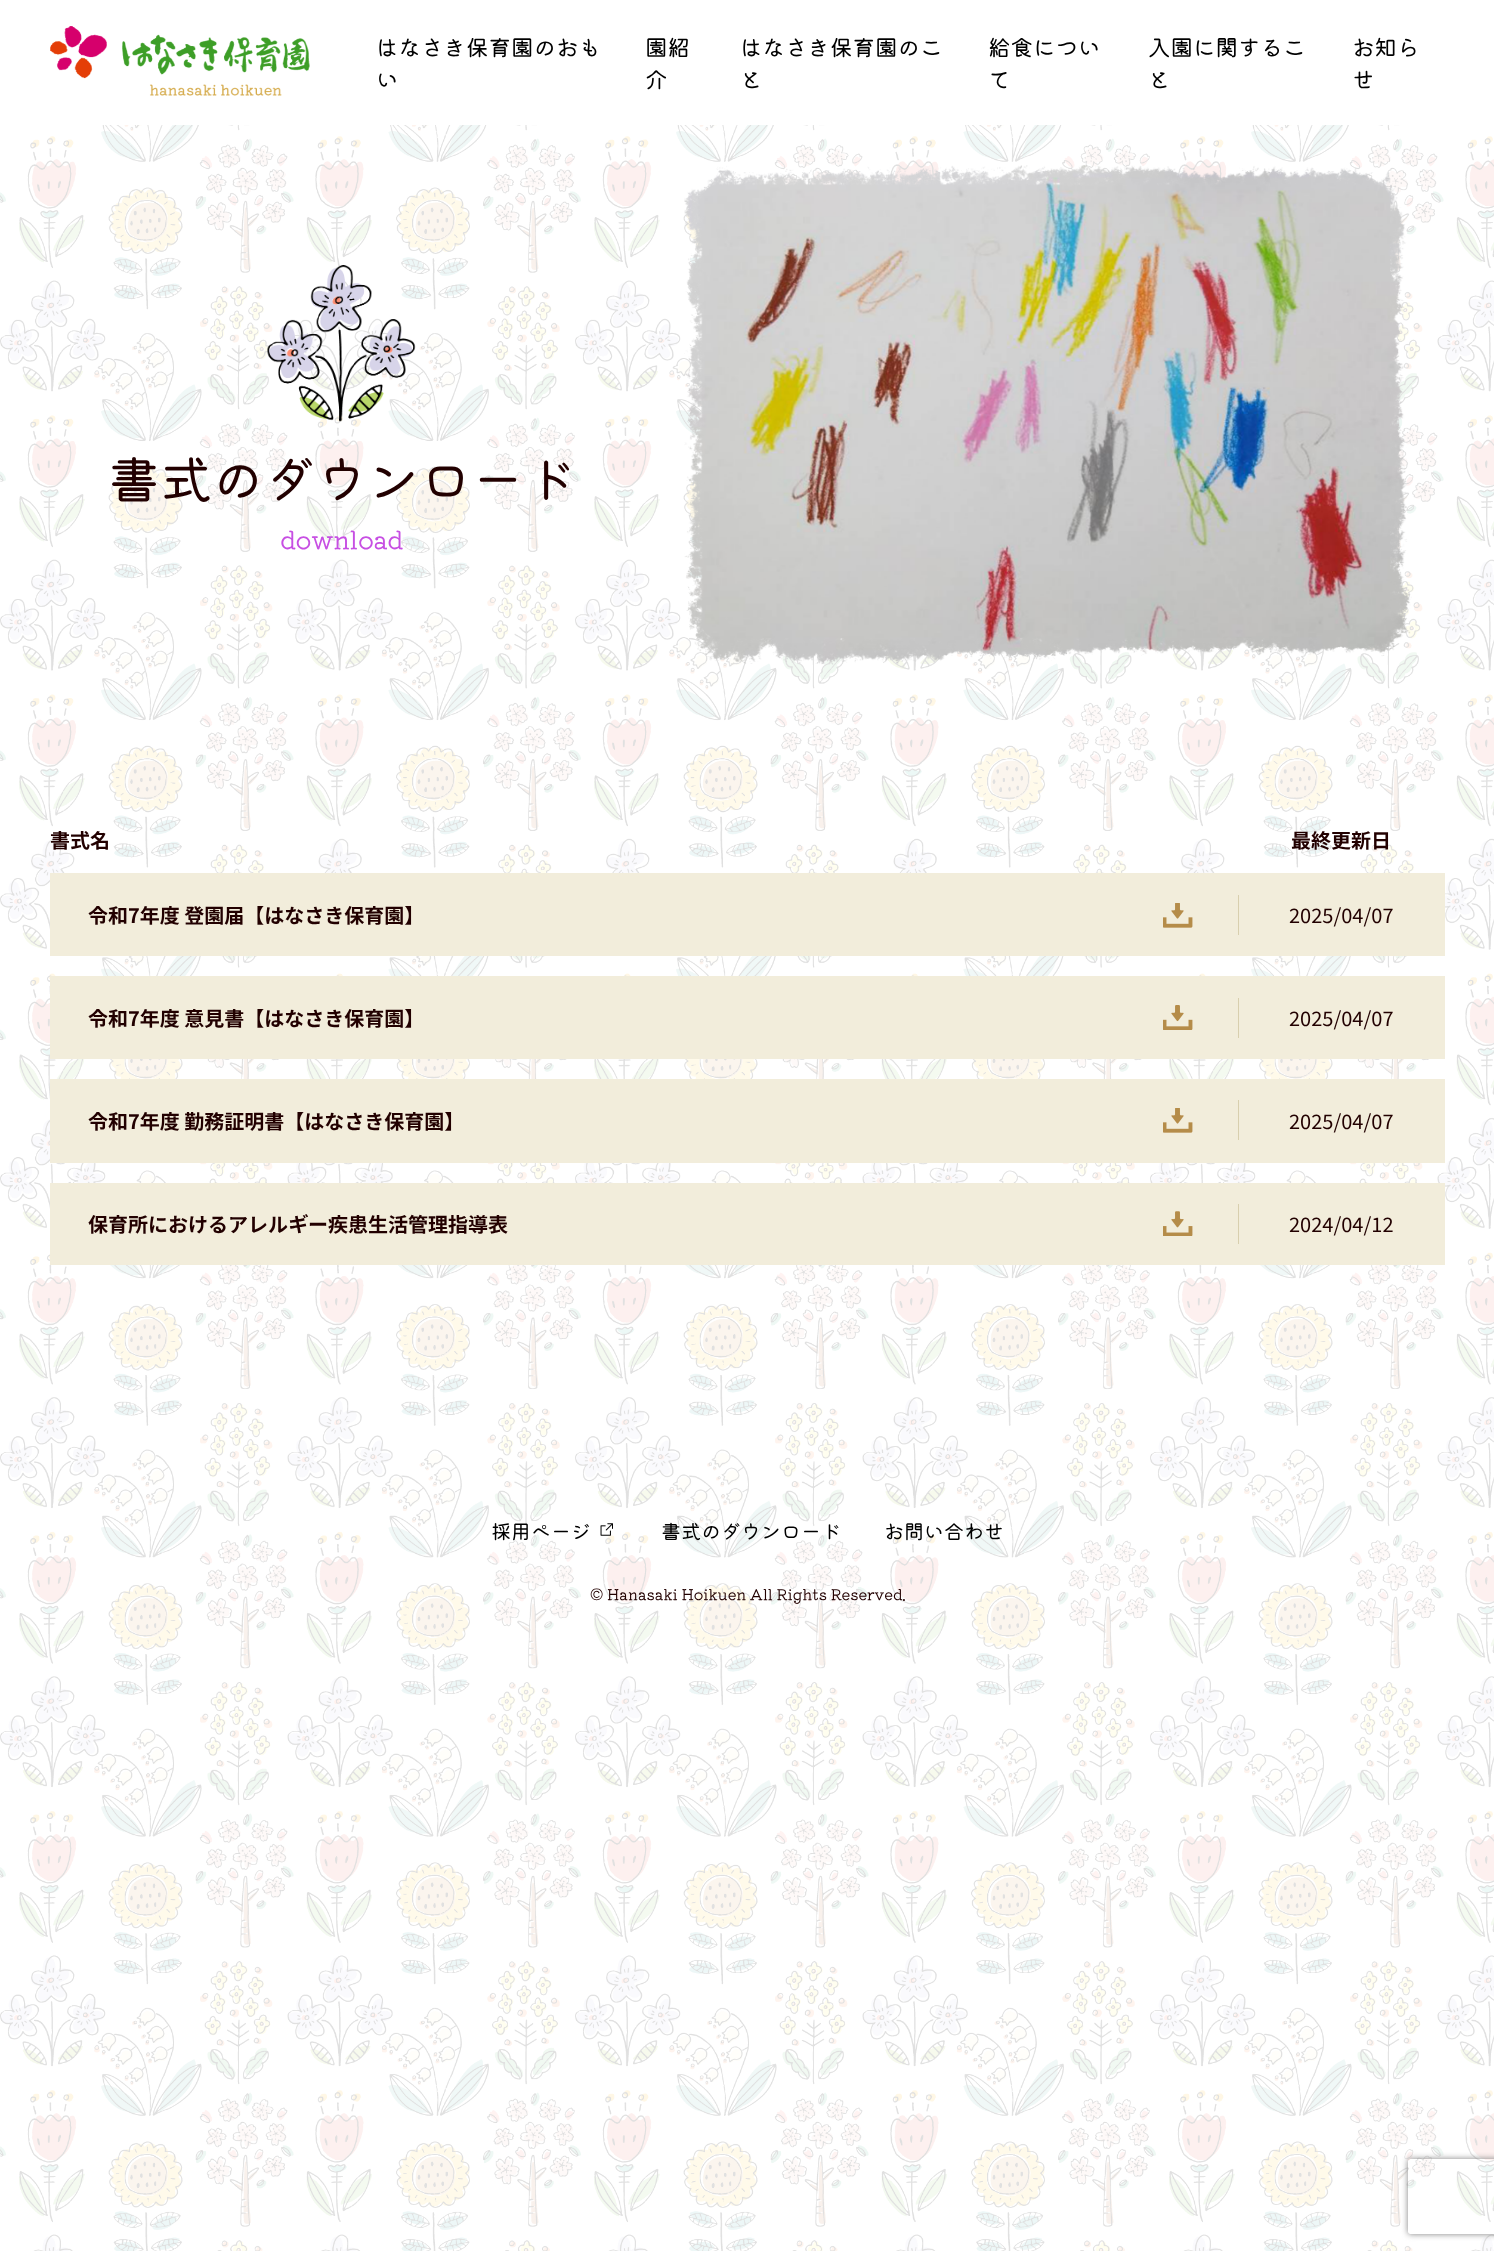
<!DOCTYPE html>
<meta charset="utf-8">
<style>body { margin: 0 } canvas { display: block }</style>
<canvas id="canvas" width="1494" height="2251"></canvas>
<script type="module">
  const canvas = document.getElementById("canvas");
  const ctx = canvas.getContext("2d");
  ctx.miterLimit = 4;
  ctx.fontKerning = "normal";
  async function loadImage(src) {
    const img = new Image();
    img.src = src;
    await img.decode();
    return img;
  }

  ctx.fillStyle = "#ffffff";
  ctx.fillRect(0, 0, 1494, 2251);
  ctx.drawImage(await loadImage("img1.png"), 0, 125, 1494, 2126);
  ctx.drawImage(await loadImage("img2.png"), 50, 26, 260, 70);
  ctx.font = "22.5px Kiwi Maru";
  ctx.fillStyle = "#000000";
  ctx.fillText("はなさき保育園のおも", 376, 56);
  ctx.fillText("い", 376, 88);
  ctx.fillText("園紹", 645, 56);
  ctx.fillText("介", 645, 88);
  ctx.fillText("はなさき保育園のこ", 740, 56);
  ctx.fillText("と", 740, 88);
  ctx.fillText("給食につい", 988, 56);
  ctx.fillText("て", 988, 88);
  ctx.fillText("入園に関するこ", 1148, 56);
  ctx.fillText("と", 1148, 88);
  ctx.fillText("お知ら", 1352, 56);
  ctx.fillText("せ", 1352, 88);
  ctx.drawImage(await loadImage("img3.png"), 267, 265, 149, 157);
  ctx.font = "52px Kiwi Maru";
  ctx.fillStyle = "#220000";
  ctx.fillText("書式のダウンロード", 108, 499);
  ctx.font = "25px Kiwi Maru";
  ctx.fillStyle = "#c74fe3";
  ctx.fillText("download", 280, 549);
  ctx.drawImage(await loadImage("img4.png"), 684, 165, 728, 500);
  ctx.font = "bold 20px Noto Sans JP";
  ctx.fillStyle = "#220000";
  ctx.fillText("書式名", 50, 848);
  ctx.fillText("最終更新日", 1291, 848);
  ctx.fillStyle = "#f2eddb";
  ctx.fillRect(50, 873, 1395, 83);
  ctx.drawImage(await loadImage("img5.png"), 1163, 903, 30, 25);
  ctx.fillStyle = "#220000";
  ctx.fillText("令和7年度 登園届【はなさき保育園】", 88, 923);
  ctx.fillStyle = "#d8cfae";
  ctx.fillRect(1238, 895, 1, 40);
  ctx.font = "20px Noto Sans JP";
  ctx.fillStyle = "#220000";
  ctx.fillText("2025/04/07", 1289, 923);
  ctx.fillStyle = "#f2eddb";
  ctx.fillRect(50, 976, 1395, 83);
  ctx.drawImage(await loadImage("img6.png"), 1163, 1005, 30, 25);
  ctx.font = "bold 20px Noto Sans JP";
  ctx.fillStyle = "#220000";
  ctx.fillText("令和7年度 意見書【はなさき保育園】", 88, 1026);
  ctx.fillStyle = "#d8cfae";
  ctx.fillRect(1238, 998, 1, 40);
  ctx.font = "20px Noto Sans JP";
  ctx.fillStyle = "#220000";
  ctx.fillText("2025/04/07", 1289, 1026);
  ctx.fillStyle = "#f2eddb";
  ctx.fillRect(50, 1079, 1395, 84);
  ctx.drawImage(await loadImage("img5.png"), 1163, 1108, 30, 25);
  ctx.font = "bold 20px Noto Sans JP";
  ctx.fillStyle = "#220000";
  ctx.fillText("令和7年度 勤務証明書【はなさき保育園】", 88, 1129);
  ctx.fillStyle = "#d8cfae";
  ctx.fillRect(1238, 1100, 1, 40);
  ctx.font = "20px Noto Sans JP";
  ctx.fillStyle = "#220000";
  ctx.fillText("2025/04/07", 1289, 1129);
  ctx.fillStyle = "#f2eddb";
  ctx.fillRect(50, 1183, 1395, 82);
  ctx.drawImage(await loadImage("img7.png"), 1163, 1211, 30, 25);
  ctx.font = "bold 20px Noto Sans JP";
  ctx.fillStyle = "#220000";
  ctx.fillText("保育所におけるアレルギー疾患生活管理指導表", 88, 1232);
  ctx.fillStyle = "#d8cfae";
  ctx.fillRect(1238, 1204, 1, 40);
  ctx.font = "20px Noto Sans JP";
  ctx.fillStyle = "#220000";
  ctx.fillText("2024/04/12", 1289, 1232);
  ctx.font = "20px Kiwi Maru";
  ctx.fillStyle = "#000000";
  ctx.fillText("採用ページ", 491, 1539);
  ctx.drawImage(await loadImage("img8.png"), 600, 1523, 13, 13);
  ctx.fillText("書式のダウンロード", 661, 1539);
  ctx.fillText("お問い合わせ", 884, 1539);
  ctx.font = "15px Kiwi Maru";
  ctx.fillStyle = "#220000";
  ctx.fillText("© Hanasaki Hoikuen All Rights Reserved.", 590, 1600);
  ctx.save();
  ctx.beginPath();
  ctx.moveTo(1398, 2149);
  ctx.lineTo(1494, 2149);
  ctx.lineTo(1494, 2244);
  ctx.lineTo(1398, 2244);
  ctx.closePath();
  ctx.moveTo(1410.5, 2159);
  ctx.lineTo(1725.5, 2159);
  ctx.bezierCurveTo(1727, 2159, 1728, 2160, 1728, 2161.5);
  ctx.lineTo(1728, 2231.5);
  ctx.bezierCurveTo(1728, 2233, 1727, 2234, 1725.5, 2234);
  ctx.lineTo(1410.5, 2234);
  ctx.bezierCurveTo(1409, 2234, 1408, 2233, 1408, 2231.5);
  ctx.lineTo(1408, 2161.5);
  ctx.bezierCurveTo(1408, 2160, 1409, 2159, 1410.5, 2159);
  ctx.closePath();
  ctx.clip("evenodd");
  ctx.fillStyle = "#808080";
  ctx.filter = "blur(3px)";
  ctx.beginPath();
  ctx.roundRect(1408, 2159, 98, 75, 2.5);
  ctx.fill();
  ctx.filter = "none";
  ctx.restore();
</script>
